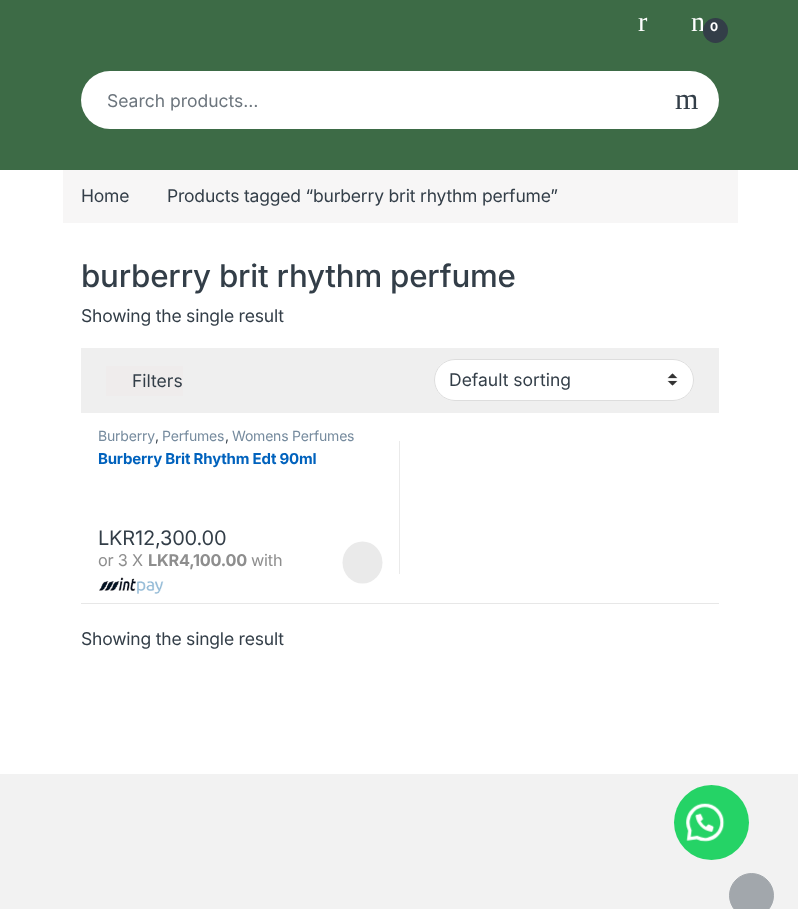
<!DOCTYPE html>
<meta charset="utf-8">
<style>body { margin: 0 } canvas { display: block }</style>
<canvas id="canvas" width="798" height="909"></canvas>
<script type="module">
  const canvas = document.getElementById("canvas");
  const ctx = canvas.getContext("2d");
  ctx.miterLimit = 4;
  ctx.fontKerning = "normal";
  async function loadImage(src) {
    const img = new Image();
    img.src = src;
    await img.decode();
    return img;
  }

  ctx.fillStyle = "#ffffff";
  ctx.fillRect(0, 0, 798, 909);
  ctx.fillStyle = "#3d6b46";
  ctx.fillRect(0, 0, 798, 170);
  ctx.letterSpacing = "-0.2px";
  ctx.font = "28px Liberation Serif";
  ctx.fillStyle = "#ffffff";
  ctx.fillText("r", 638, 31);
  ctx.fillText("n", 691, 31);
  ctx.fillStyle = "#333e48";
  ctx.beginPath();
  ctx.arc(715.5, 30.5, 12.5, 0, Math.PI * 2);
  ctx.fill();
  ctx.font = "bold 12px Inter";
  ctx.fillStyle = "#ffffff";
  ctx.fillText("0", 710, 31);
  ctx.beginPath();
  ctx.roundRect(81, 71, 638, 58, 29);
  ctx.fill();
  ctx.letterSpacing = "0px";
  ctx.font = "17.5px Inter";
  ctx.fillStyle = "#6c757d";
  ctx.fillText("Search products…", 107, 107);
  ctx.font = "30px Liberation Serif";
  ctx.fillStyle = "#333e48";
  ctx.fillText("m", 675, 109);
  ctx.fillStyle = "#f7f6f6";
  ctx.fillRect(63, 170, 675, 53);
  ctx.letterSpacing = "-0.2px";
  ctx.font = "17.5px Inter";
  ctx.fillStyle = "#333e48";
  ctx.fillText("Home", 81, 202);
  ctx.fillText("Products tagged “burberry brit rhythm perfume”", 167, 202);
  ctx.font = "500 31.25px Inter";
  ctx.fillText("burberry brit rhythm perfume", 81, 287);
  ctx.font = "17.5px Inter";
  ctx.fillText("Showing the single result", 81, 322);
  ctx.fillStyle = "#efefef";
  ctx.fillRect(81, 348, 638, 65);
  ctx.fillStyle = "#efecec";
  ctx.fillRect(106, 366, 77, 30);
  ctx.letterSpacing = "0px";
  ctx.fillStyle = "#333e48";
  ctx.fillText("Filters", 132, 387);
  ctx.fillStyle = "#ffffff";
  ctx.beginPath();
  ctx.roundRect(434, 359, 260, 42, 21);
  ctx.fill();
  ctx.drawImage(await loadImage("img1.png"), 667, 373, 11, 13);
  ctx.beginPath();
  ctx.roundRect(434.5, 359.5, 259, 41, 20.5);
  ctx.strokeStyle = "#dddddd";
  ctx.stroke();
  ctx.fillStyle = "#333e48";
  ctx.fillText("Default sorting", 449, 386);
  ctx.letterSpacing = "-0.2px";
  ctx.font = "14px Inter";
  ctx.fillStyle = "#768b9e";
  ctx.fillText("Burberry", 98, 441);
  ctx.fillStyle = "#333e48";
  ctx.fillText(",", 155, 441);
  ctx.fillStyle = "#768b9e";
  ctx.fillText("Perfumes", 162, 441);
  ctx.fillStyle = "#333e48";
  ctx.fillText(",", 225, 441);
  ctx.fillStyle = "#768b9e";
  ctx.fillText("Womens Perfumes", 232, 441);
  ctx.font = "bold 15px Inter";
  ctx.fillStyle = "#0062bd";
  ctx.fillText("Burberry Brit Rhythm Edt 90ml", 98, 464);
  ctx.font = "20px Inter";
  ctx.fillStyle = "#333e48";
  ctx.fillText("LKR12,300.00", 98, 545);
  ctx.font = "16.25px Inter";
  ctx.fillStyle = "#8e8e8e";
  ctx.fillText("or 3 X", 98, 566);
  ctx.font = "bold 16.25px Inter";
  ctx.fillText("LKR4,100.00", 148, 566);
  ctx.font = "16.25px Inter";
  ctx.fillText("with", 251, 566);
  ctx.drawImage(await loadImage("img2.png"), 99, 577, 65, 17);
  ctx.fillStyle = "#eaeaea";
  ctx.beginPath();
  ctx.ellipse(362.5, 562.5, 20, 21, 0, 0, Math.PI * 2);
  ctx.fill();
  ctx.fillRect(399, 441, 1, 133);
  ctx.fillStyle = "#e7e7e7";
  ctx.fillRect(81, 603, 638, 1);
  ctx.font = "17.5px Inter";
  ctx.fillStyle = "#333e48";
  ctx.fillText("Showing the single result", 81, 645);
  ctx.fillStyle = "#f2f2f2";
  ctx.fillRect(0, 774, 798, 135);
  ctx.fillStyle = "#25d366";
  ctx.beginPath();
  ctx.arc(711.5, 822.5, 37.5, 0, Math.PI * 2);
  ctx.fill();
  ctx.drawImage(await loadImage("img3.png"), 686, 803, 39, 39);
  ctx.fillStyle = "#a2a7ac";
  ctx.beginPath();
  ctx.arc(751.5, 895.5, 22, 0, Math.PI * 2);
  ctx.fill();
  ctx.strokeStyle = "#a2a7ac";
  ctx.stroke();
</script>
